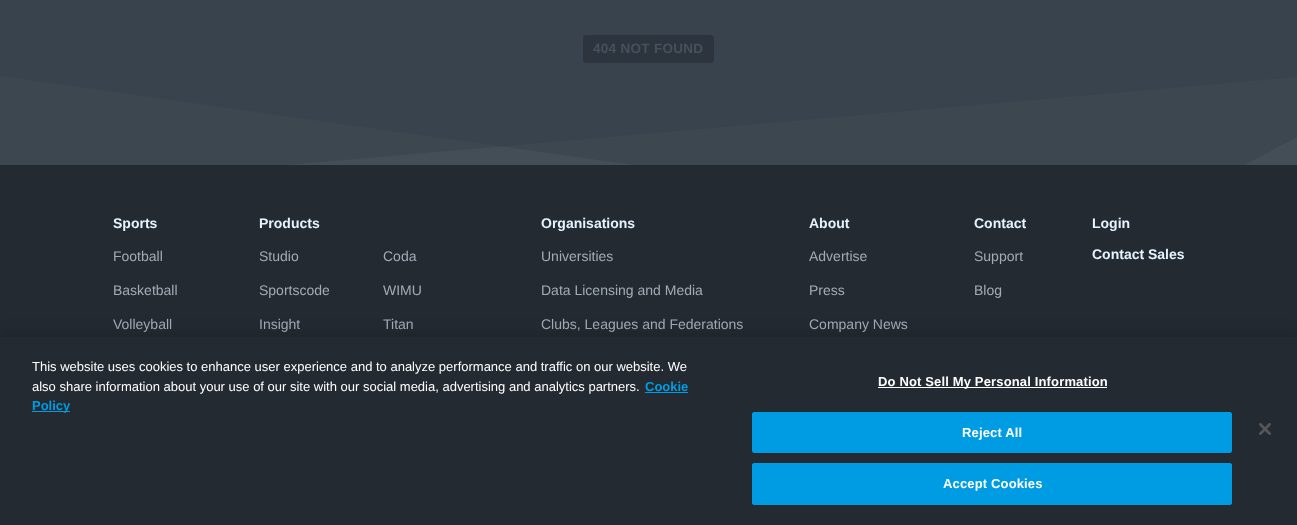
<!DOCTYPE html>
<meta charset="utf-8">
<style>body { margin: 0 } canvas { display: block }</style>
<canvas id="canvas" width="1297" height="525"></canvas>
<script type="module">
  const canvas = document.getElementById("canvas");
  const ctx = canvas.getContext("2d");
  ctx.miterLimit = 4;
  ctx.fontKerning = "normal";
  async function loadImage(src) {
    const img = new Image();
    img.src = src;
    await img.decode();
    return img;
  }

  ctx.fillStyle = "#535c65";
  ctx.fillRect(0, 0, 1297, 525);
  ctx.fillStyle = "#444e57";
  ctx.beginPath();
  ctx.moveTo(0, -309);
  ctx.lineTo(1297, -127);
  ctx.lineTo(1297, 258);
  ctx.lineTo(0, 76);
  ctx.closePath();
  ctx.fill();
  ctx.fillStyle = "rgba(53, 63, 74, 0.5)";
  ctx.beginPath();
  ctx.moveTo(0, -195);
  ctx.lineTo(1297, -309);
  ctx.lineTo(1297, 77);
  ctx.lineTo(0, 190);
  ctx.closePath();
  ctx.fill();
  ctx.beginPath();
  ctx.moveTo(0, -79);
  ctx.lineTo(1297, -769);
  ctx.lineTo(1297, 137);
  ctx.lineTo(0, 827);
  ctx.closePath();
  ctx.fill();
  ctx.fillStyle = "#2c353e";
  ctx.beginPath();
  ctx.roundRect(583, 35, 131, 28, 4);
  ctx.fill();
  ctx.letterSpacing = "0.3px";
  ctx.font = "bold 13.5px Liberation Sans";
  ctx.fillStyle = "#45525e";
  ctx.fillText("404 NOT FOUND", 593, 53);
  ctx.fillStyle = "#232a31";
  ctx.fillRect(0, 165, 1297, 172);
  ctx.letterSpacing = "0px";
  ctx.font = "bold 14px Liberation Sans";
  ctx.fillStyle = "#e6f2ff";
  ctx.fillText("Sports", 113, 228);
  ctx.font = "14px Liberation Sans";
  ctx.fillStyle = "#a2acb7";
  ctx.fillText("Football", 113, 261);
  ctx.fillText("Basketball", 113, 295);
  ctx.fillText("Volleyball", 113, 329);
  ctx.font = "bold 14px Liberation Sans";
  ctx.fillStyle = "#e6f2ff";
  ctx.fillText("Products", 259, 228);
  ctx.font = "14px Liberation Sans";
  ctx.fillStyle = "#a2acb7";
  ctx.fillText("Studio", 259, 261);
  ctx.fillText("Coda", 383, 261);
  ctx.fillText("Sportscode", 259, 295);
  ctx.fillText("WIMU", 383, 295);
  ctx.fillText("Insight", 259, 329);
  ctx.fillText("Titan", 383, 329);
  ctx.font = "bold 14px Liberation Sans";
  ctx.fillStyle = "#e6f2ff";
  ctx.fillText("Organisations", 541, 228);
  ctx.font = "14px Liberation Sans";
  ctx.fillStyle = "#a2acb7";
  ctx.fillText("Universities", 541, 261);
  ctx.fillText("Data Licensing and Media", 541, 295);
  ctx.fillText("Clubs, Leagues and Federations", 541, 329);
  ctx.font = "bold 14px Liberation Sans";
  ctx.fillStyle = "#e6f2ff";
  ctx.fillText("About", 809, 228);
  ctx.font = "14px Liberation Sans";
  ctx.fillStyle = "#a2acb7";
  ctx.fillText("Advertise", 809, 261);
  ctx.fillText("Press", 809, 295);
  ctx.fillText("Company News", 809, 329);
  ctx.font = "bold 14px Liberation Sans";
  ctx.fillStyle = "#e6f2ff";
  ctx.fillText("Contact", 974, 228);
  ctx.font = "14px Liberation Sans";
  ctx.fillStyle = "#a2acb7";
  ctx.fillText("Support", 974, 261);
  ctx.fillText("Blog", 974, 295);
  ctx.font = "bold 14px Liberation Sans";
  ctx.fillStyle = "#e6f2ff";
  ctx.fillText("Login", 1092, 228);
  ctx.fillText("Contact Sales", 1092, 259);
  ctx.fillStyle = "rgba(0, 0, 0, 0.2)";
  ctx.filter = "blur(9px)";
  ctx.beginPath();
  ctx.rect(0, 337, 1297, 188);
  ctx.fill();
  ctx.filter = "none";
  ctx.fillStyle = "#232a31";
  ctx.fillRect(0, 337, 1297, 188);
  ctx.font = "13px Liberation Sans";
  ctx.fillStyle = "#ffffff";
  ctx.fillText("This website uses cookies to enhance user experience and to analyze performance and traffic on our website. We", 32, 371);
  ctx.fillText("also share information about your use of our site with our social media, advertising and analytics partners.", 32, 391);
  ctx.font = "bold 13px Liberation Sans";
  ctx.fillStyle = "#009ce3";
  ctx.fillText("Cookie", 645, 391);
  ctx.fillRect(645, 392, 43, 1);
  ctx.fillRect(32, 411, 38, 1);
  ctx.fillText("Policy", 32, 410);
  ctx.fillStyle = "#ffffff";
  ctx.fillRect(878, 387, 229, 1);
  ctx.letterSpacing = "0.15px";
  ctx.fillText("Do Not Sell My Personal Information", 878, 386);
  ctx.fillStyle = "#009ce3";
  ctx.beginPath();
  ctx.roundRect(752.5, 412.5, 479, 40, 1.5);
  ctx.fill();
  ctx.strokeStyle = "#009ce3";
  ctx.stroke();
  ctx.fillStyle = "#ffffff";
  ctx.fillText("Reject All", 962, 437);
  ctx.fillStyle = "#009ce3";
  ctx.beginPath();
  ctx.roundRect(752.5, 463.5, 479, 41, 1.5);
  ctx.fill();
  ctx.stroke();
  ctx.fillStyle = "#ffffff";
  ctx.fillText("Accept Cookies", 943, 488);
  ctx.drawImage(await loadImage("img1.png"), 1259, 423, 12, 12);
</script>
